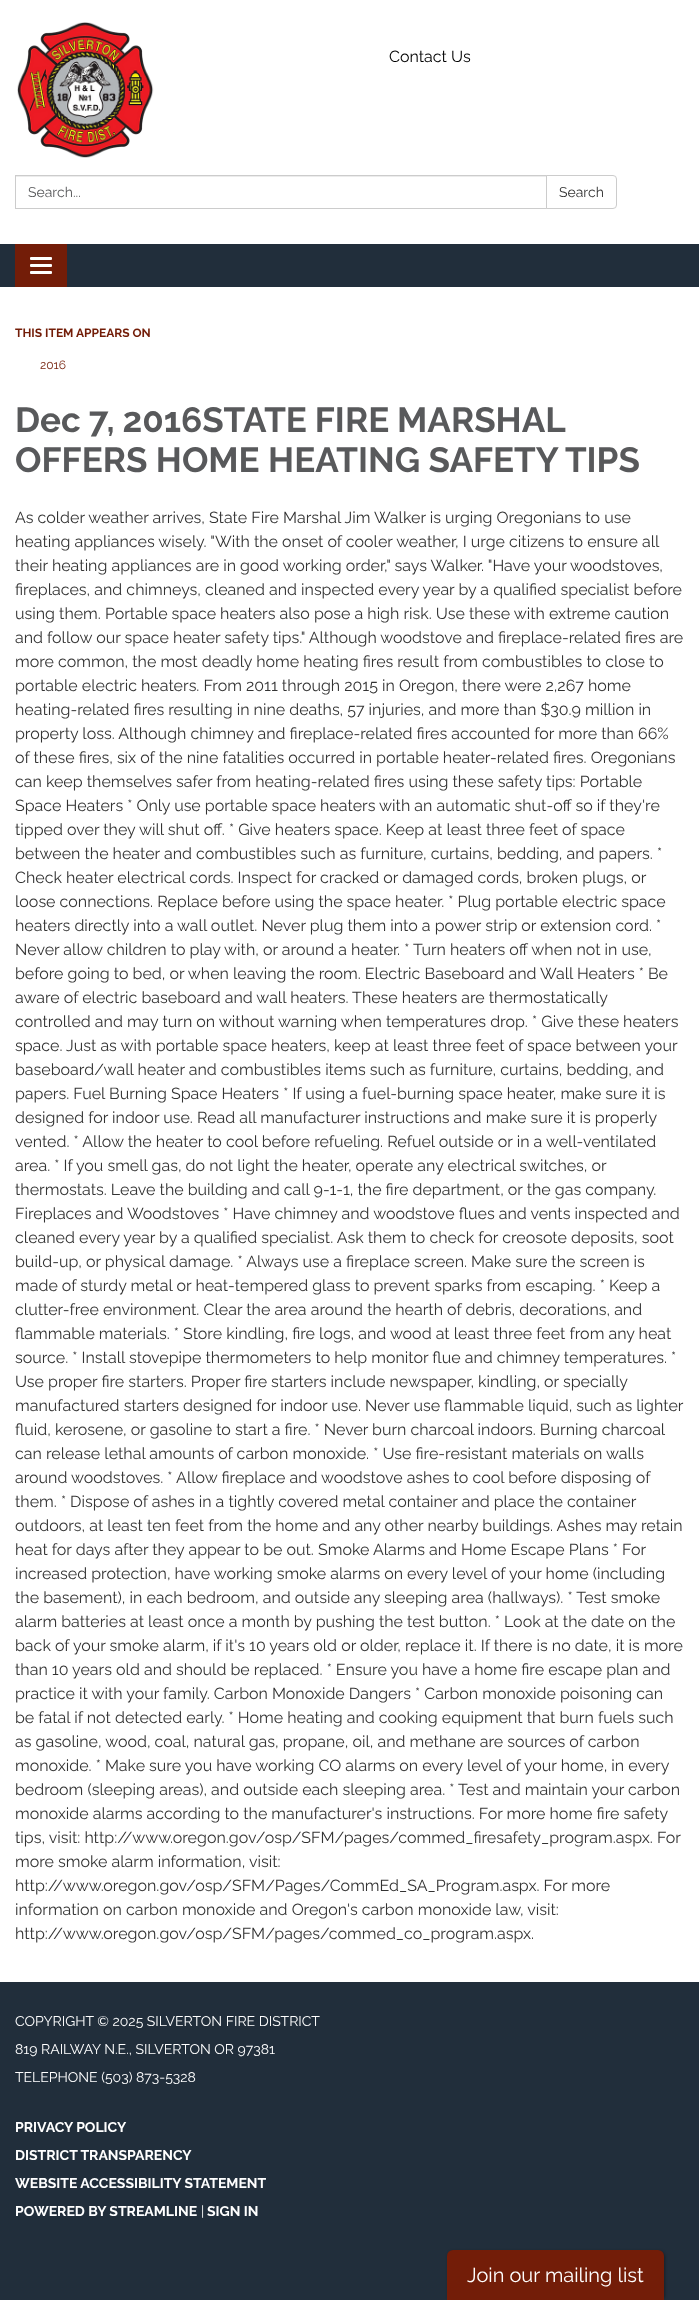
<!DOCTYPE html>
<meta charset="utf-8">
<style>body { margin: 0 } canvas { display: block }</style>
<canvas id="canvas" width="699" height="2300"></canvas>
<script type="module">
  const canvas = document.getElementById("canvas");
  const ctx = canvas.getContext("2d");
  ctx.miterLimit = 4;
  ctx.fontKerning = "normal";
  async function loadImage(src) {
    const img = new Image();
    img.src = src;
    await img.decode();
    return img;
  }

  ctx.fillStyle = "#212e3b";
  ctx.fillRect(0, 0, 699, 2300);
  ctx.fillStyle = "#ffffff";
  ctx.fillRect(0, 0, 699, 244);
  ctx.drawImage(await loadImage("img1.png"), 17, 22, 137, 136);
  ctx.font = "16px Raleway";
  ctx.fillStyle = "#000000";
  ctx.fillText("Contact Us", 389, 62);
  ctx.fillStyle = "#ececec";
  ctx.fillRect(16, 176, 530, 1);
  ctx.strokeStyle = "#cccccc";
  ctx.strokeRect(15.5, 175.5, 531, 33);
  ctx.font = "14px Raleway";
  ctx.fillStyle = "#58595b";
  ctx.fillText("Search...", 28, 197);
  ctx.fillStyle = "#ffffff";
  ctx.beginPath();
  ctx.roundRect(546.5, 175.5, 70, 33, [0, 3.5, 3.5, 0]);
  ctx.fill();
  ctx.stroke();
  ctx.fillStyle = "#333333";
  ctx.fillText("Search", 559, 197);
  ctx.fillStyle = "#731d08";
  ctx.fillRect(15, 244, 52, 43);
  ctx.fillStyle = "#ffffff";
  ctx.beginPath();
  ctx.roundRect(30, 257, 22, 3, 1);
  ctx.fill();
  ctx.beginPath();
  ctx.roundRect(30, 264, 22, 3, 1);
  ctx.fill();
  ctx.beginPath();
  ctx.roundRect(30, 271, 22, 3, 1);
  ctx.fill();
  ctx.fillRect(0, 287, 699, 1695);
  ctx.font = "bold 12px Raleway";
  ctx.fillStyle = "#731d08";
  ctx.fillText("THIS ITEM APPEARS ON", 15, 337);
  ctx.font = "12px Raleway";
  ctx.fillText("2016", 40, 369);
  ctx.wordSpacing = "-0.5px";
  ctx.font = "bold 35px Raleway";
  ctx.fillStyle = "#58595b";
  ctx.fillText("Dec 7, 2016STATE FIRE MARSHAL", 15, 432);
  ctx.wordSpacing = "0px";
  ctx.fillText("OFFERS HOME HEATING SAFETY TIPS", 15, 472);
  ctx.font = "16px Raleway";
  ctx.fillStyle = "#333333";
  ctx.fillText("As colder weather arrives, State Fire Marshal Jim Walker is urging Oregonians to use", 15, 523);
  ctx.fillText("heating appliances wisely. \"With the onset of cooler weather, I urge citizens to ensure all", 15, 547);
  ctx.fillText("their heating appliances are in good working order,\" says Walker. \"Have your woodstoves,", 15, 571);
  ctx.fillText("fireplaces, and chimneys, cleaned and inspected every year by a qualified specialist before", 15, 595);
  ctx.fillText("using them. Portable space heaters also pose a high risk. Use these with extreme caution", 15, 619);
  ctx.fillText("and follow our space heater safety tips.\" Although woodstove and fireplace-related fires are", 15, 643);
  ctx.fillText("more common, the most deadly home heating fires result from combustibles to close to", 15, 667);
  ctx.fillText("portable electric heaters. From 2011 through 2015 in Oregon, there were 2,267 home", 15, 691);
  ctx.fillText("heating-related fires resulting in nine deaths, 57 injuries, and more than $30.9 million in", 15, 715);
  ctx.fillText("property loss. Although chimney and fireplace-related fires accounted for more than 66%", 15, 739);
  ctx.fillText("of these fires, six of the nine fatalities occurred in portable heater-related fires. Oregonians", 15, 763);
  ctx.fillText("can keep themselves safer from heating-related fires using these safety tips: Portable", 15, 787);
  ctx.fillText("Space Heaters * Only use portable space heaters with an automatic shut-off so if they're", 15, 811);
  ctx.fillText("tipped over they will shut off. * Give heaters space. Keep at least three feet of space", 15, 835);
  ctx.fillText("between the heater and combustibles such as furniture, curtains, bedding, and papers. *", 15, 859);
  ctx.fillText("Check heater electrical cords. Inspect for cracked or damaged cords, broken plugs, or", 15, 883);
  ctx.fillText("loose connections. Replace before using the space heater. * Plug portable electric space", 15, 907);
  ctx.fillText("heaters directly into a wall outlet. Never plug them into a power strip or extension cord. *", 15, 931);
  ctx.fillText("Never allow children to play with, or around a heater. * Turn heaters off when not in use,", 15, 955);
  ctx.fillText("before going to bed, or when leaving the room. Electric Baseboard and Wall Heaters * Be", 15, 979);
  ctx.fillText("aware of electric baseboard and wall heaters. These heaters are thermostatically", 15, 1003);
  ctx.fillText("controlled and may turn on without warning when temperatures drop. * Give these heaters", 15, 1027);
  ctx.fillText("space. Just as with portable space heaters, keep at least three feet of space between your", 15, 1051);
  ctx.fillText("baseboard/wall heater and combustibles items such as furniture, curtains, bedding, and", 15, 1075);
  ctx.fillText("papers. Fuel Burning Space Heaters * If using a fuel-burning space heater, make sure it is", 15, 1099);
  ctx.fillText("designed for indoor use. Read all manufacturer instructions and make sure it is properly", 15, 1123);
  ctx.fillText("vented. * Allow the heater to cool before refueling. Refuel outside or in a well-ventilated", 15, 1147);
  ctx.fillText("area. * If you smell gas, do not light the heater, operate any electrical switches, or", 15, 1171);
  ctx.fillText("thermostats. Leave the building and call 9-1-1, the fire department, or the gas company.", 15, 1195);
  ctx.fillText("Fireplaces and Woodstoves * Have chimney and woodstove flues and vents inspected and", 15, 1219);
  ctx.fillText("cleaned every year by a qualified specialist. Ask them to check for creosote deposits, soot", 15, 1243);
  ctx.fillText("build-up, or physical damage. * Always use a fireplace screen. Make sure the screen is", 15, 1267);
  ctx.fillText("made of sturdy metal or heat-tempered glass to prevent sparks from escaping. * Keep a", 15, 1291);
  ctx.fillText("clutter-free environment. Clear the area around the hearth of debris, decorations, and", 15, 1315);
  ctx.fillText("flammable materials. * Store kindling, fire logs, and wood at least three feet from any heat", 15, 1339);
  ctx.fillText("source. * Install stovepipe thermometers to help monitor flue and chimney temperatures. *", 15, 1363);
  ctx.fillText("Use proper fire starters. Proper fire starters include newspaper, kindling, or specially", 15, 1387);
  ctx.fillText("manufactured starters designed for indoor use. Never use flammable liquid, such as lighter", 15, 1411);
  ctx.fillText("fluid, kerosene, or gasoline to start a fire. * Never burn charcoal indoors. Burning charcoal", 15, 1435);
  ctx.fillText("can release lethal amounts of carbon monoxide. * Use fire-resistant materials on walls", 15, 1459);
  ctx.fillText("around woodstoves. * Allow fireplace and woodstove ashes to cool before disposing of", 15, 1483);
  ctx.fillText("them. * Dispose of ashes in a tightly covered metal container and place the container", 15, 1507);
  ctx.fillText("outdoors, at least ten feet from the home and any other nearby buildings. Ashes may retain", 15, 1531);
  ctx.fillText("heat for days after they appear to be out. Smoke Alarms and Home Escape Plans * For", 15, 1555);
  ctx.fillText("increased protection, have working smoke alarms on every level of your home (including", 15, 1579);
  ctx.fillText("the basement), in each bedroom, and outside any sleeping area (hallways). * Test smoke", 15, 1603);
  ctx.fillText("alarm batteries at least once a month by pushing the test button. * Look at the date on the", 15, 1627);
  ctx.fillText("back of your smoke alarm, if it's 10 years old or older, replace it. If there is no date, it is more", 15, 1651);
  ctx.fillText("than 10 years old and should be replaced. * Ensure you have a home fire escape plan and", 15, 1675);
  ctx.fillText("practice it with your family. Carbon Monoxide Dangers * Carbon monoxide poisoning can", 15, 1699);
  ctx.fillText("be fatal if not detected early. * Home heating and cooking equipment that burn fuels such", 15, 1723);
  ctx.fillText("as gasoline, wood, coal, natural gas, propane, oil, and methane are sources of carbon", 15, 1747);
  ctx.fillText("monoxide. * Make sure you have working CO alarms on every level of your home, in every", 15, 1771);
  ctx.fillText("bedroom (sleeping areas), and outside each sleeping area. * Test and maintain your carbon", 15, 1795);
  ctx.fillText("monoxide alarms according to the manufacturer's instructions. For more home fire safety", 15, 1819);
  ctx.fillText("tips, visit: http://www.oregon.gov/osp/SFM/pages/commed_firesafety_program.aspx. For", 15, 1843);
  ctx.fillText("more smoke alarm information, visit:", 15, 1867);
  ctx.fillText("http://www.oregon.gov/osp/SFM/Pages/CommEd_SA_Program.aspx. For more", 15, 1891);
  ctx.fillText("information on carbon monoxide and Oregon's carbon monoxide law, visit:", 15, 1915);
  ctx.fillText("http://www.oregon.gov/osp/SFM/pages/commed_co_program.aspx.", 15, 1939);
  ctx.font = "14px Raleway";
  ctx.fillStyle = "#ffffff";
  ctx.fillText("COPYRIGHT © 2025 SILVERTON FIRE DISTRICT", 15, 2026);
  ctx.fillText("819 RAILWAY N.E., SILVERTON OR 97381", 15, 2054);
  ctx.fillText("TELEPHONE (503) 873-5328", 15, 2082);
  ctx.font = "bold 14px Raleway";
  ctx.fillText("PRIVACY POLICY", 15, 2132);
  ctx.fillText("DISTRICT TRANSPARENCY", 15, 2160);
  ctx.fillText("WEBSITE ACCESSIBILITY STATEMENT", 15, 2188);
  ctx.fillText("POWERED BY STREAMLINE", 15, 2216);
  ctx.font = "14px Raleway";
  ctx.fillText("|", 201, 2216);
  ctx.font = "bold 14px Raleway";
  ctx.fillText("SIGN IN", 207, 2216);
  ctx.fillStyle = "rgba(0, 0, 0, 0.3)";
  ctx.filter = "blur(1.5px)";
  ctx.beginPath();
  ctx.roundRect(448, 2251, 217, 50, 6);
  ctx.fill();
  ctx.filter = "none";
  ctx.fillStyle = "#731d08";
  ctx.beginPath();
  ctx.roundRect(447, 2250, 217, 50, [6, 6, 0, 0]);
  ctx.fill();
  ctx.font = "20px Raleway";
  ctx.fillStyle = "#ffffff";
  ctx.fillText("Join our mailing list", 467, 2282);
</script>
